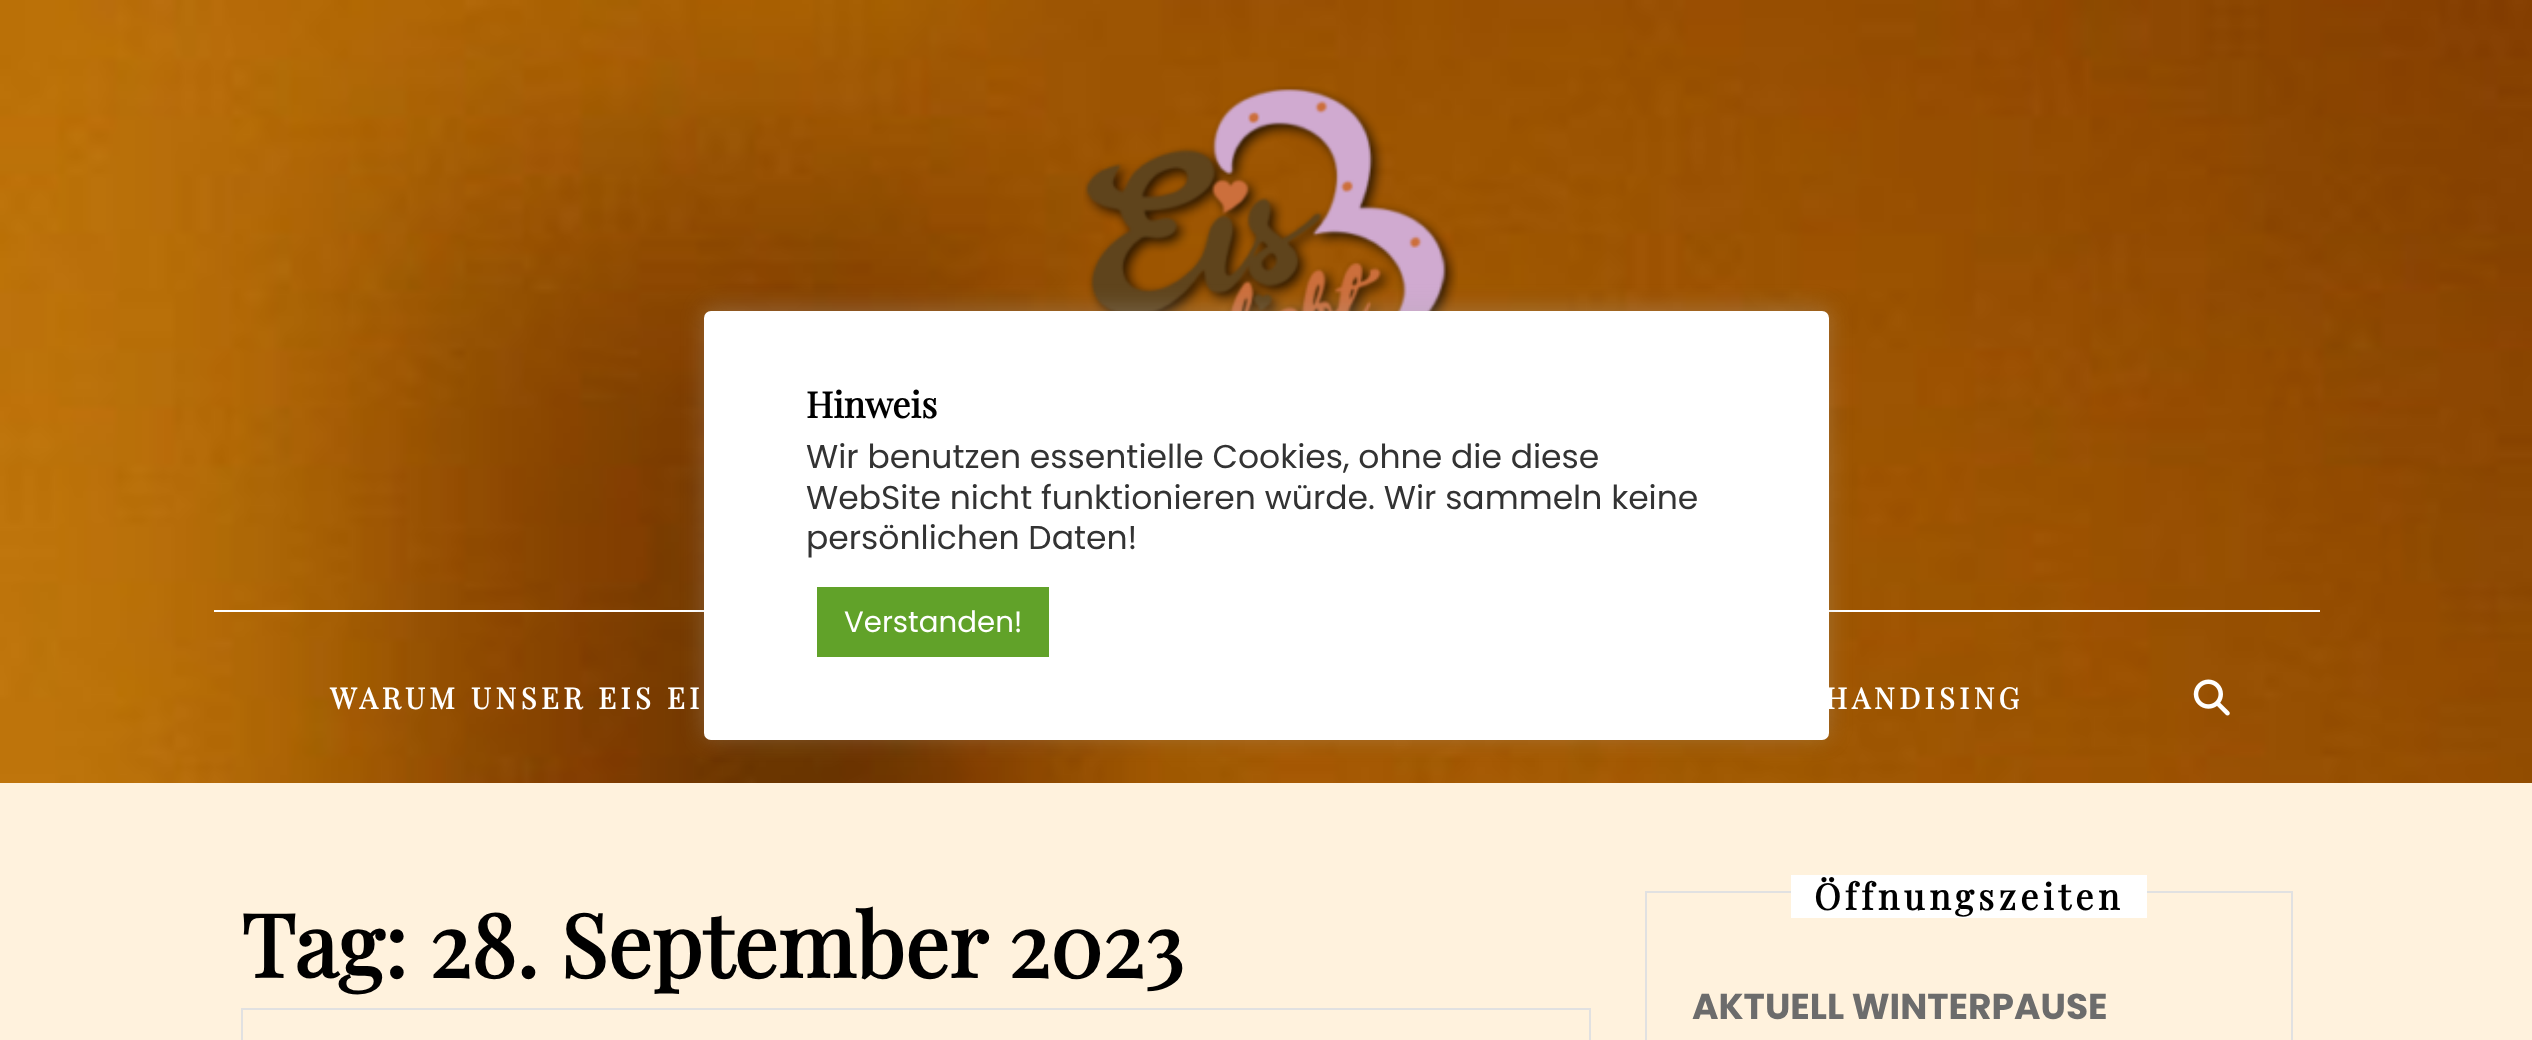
<!DOCTYPE html>
<meta charset="utf-8">
<style>body { margin: 0 } canvas { display: block }</style>
<canvas id="canvas" width="2532" height="1040"></canvas>
<script type="module">
  const canvas = document.getElementById("canvas");
  const ctx = canvas.getContext("2d");
  ctx.miterLimit = 4;
  ctx.fontKerning = "normal";
  async function loadImage(src) {
    const img = new Image();
    img.src = src;
    await img.decode();
    return img;
  }

  ctx.fillStyle = "#fff2dd";
  ctx.fillRect(0, 0, 2532, 1040);
  ctx.drawImage(await loadImage("img1.png"), 0, 0, 2532, 783);
  ctx.drawImage(await loadImage("img2.png"), 1083, 86, 375, 225);
  ctx.fillStyle = "#ffffff";
  ctx.fillRect(214, 610, 2106, 2);
  ctx.fillStyle = "rgba(172, 171, 171, 0.3)";
  ctx.filter = "blur(11px)";
  ctx.beginPath();
  ctx.roundRect(704, 308, 1125, 430, 7);
  ctx.fill();
  ctx.filter = "none";
  ctx.fillStyle = "#ffffff";
  ctx.beginPath();
  ctx.roundRect(704, 311, 1125, 429, 7);
  ctx.fill();
  ctx.font = "bold 36px Playfair Display";
  ctx.fillStyle = "#000000";
  ctx.fillText("Hinweis", 806, 418);
  ctx.font = "33px Poppins";
  ctx.fillStyle = "#333333";
  ctx.fillText("Wir benutzen essentielle Cookies, ohne die diese", 806, 468);
  ctx.fillText("WebSite nicht funktionieren würde. Wir sammeln keine", 806, 509);
  ctx.fillText("persönlichen Daten!", 806, 549);
  ctx.fillStyle = "#61a229";
  ctx.fillRect(817, 587, 232, 70);
  ctx.font = "29.25px Poppins";
  ctx.fillStyle = "#ffffff";
  ctx.fillText("Verstanden!", 844, 632);
  ctx.letterSpacing = "4.5px";
  ctx.font = "bold 29.25px Playfair Display";
  ctx.fillText("WARUM UNSER EIS EI", 330, 709);
  ctx.fillText("HANDISING", 1825, 709);
  ctx.drawImage(await loadImage("img3.png"), 2193, 679, 37, 37);
  ctx.letterSpacing = "0px";
  ctx.font = "bold 87.5px Playfair Display";
  ctx.fillStyle = "#000000";
  ctx.fillText("Tag: 28. September 2023", 241, 978);
  ctx.strokeStyle = "#e1e1e1";
  ctx.lineWidth = 2;
  ctx.strokeRect(242, 1009, 1348, 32);
  ctx.strokeRect(1646, 892, 646, 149);
  ctx.fillStyle = "#ffffff";
  ctx.fillRect(1791, 875, 356, 43);
  ctx.letterSpacing = "4.5px";
  ctx.font = "bold 36px Playfair Display";
  ctx.fillStyle = "#000000";
  ctx.fillText("Öffnungszeiten", 1814, 910);
  ctx.letterSpacing = "0px";
  ctx.font = "bold 36px Poppins";
  ctx.fillStyle = "#6c6c6c";
  ctx.fillText("AKTUELL WINTERPAUSE", 1692, 1019);
</script>
